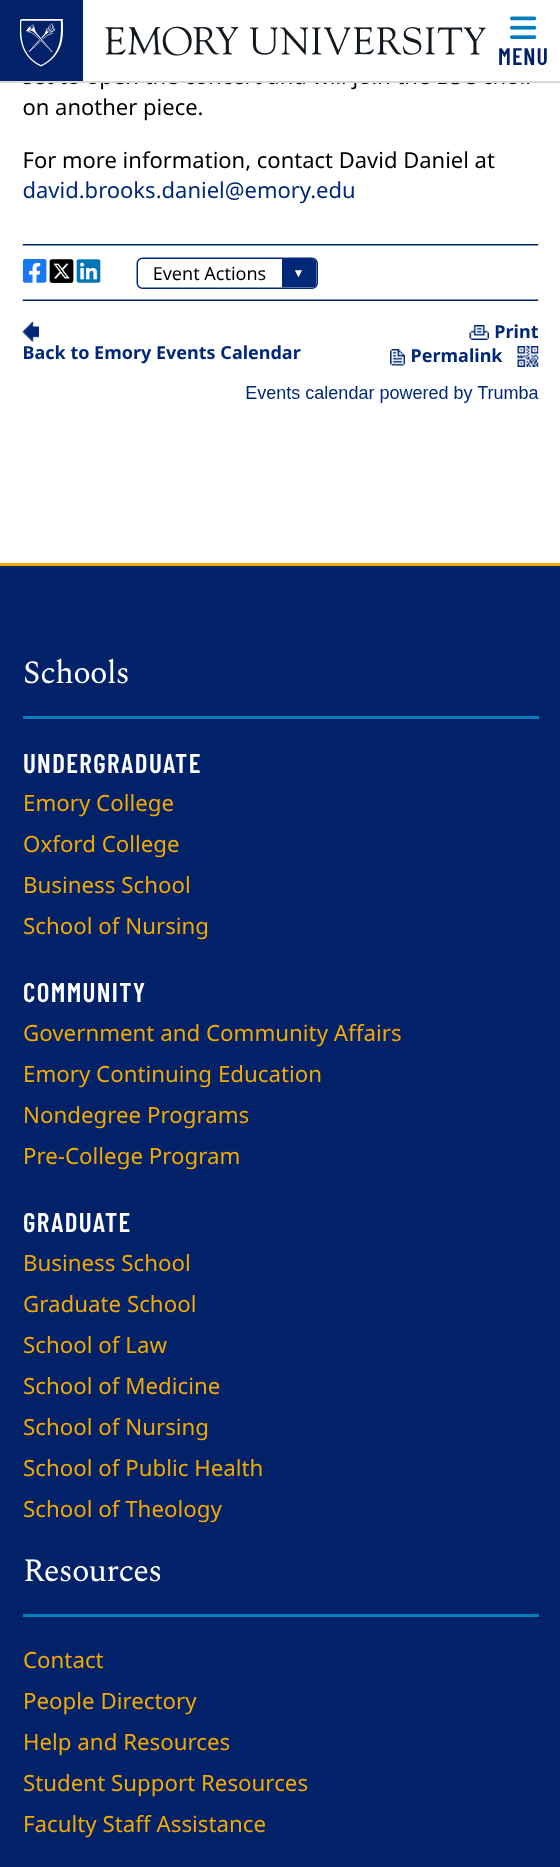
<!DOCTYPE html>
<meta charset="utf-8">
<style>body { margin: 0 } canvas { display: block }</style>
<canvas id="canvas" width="560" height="1867"></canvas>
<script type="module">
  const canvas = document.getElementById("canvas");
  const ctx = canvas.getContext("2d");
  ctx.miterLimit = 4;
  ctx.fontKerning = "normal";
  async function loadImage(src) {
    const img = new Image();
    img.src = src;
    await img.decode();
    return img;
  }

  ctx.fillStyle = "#ffffff";
  ctx.fillRect(0, 0, 560, 1867);
  ctx.fillStyle = "#d9d9d6";
  ctx.fillRect(0, 81, 560, 2);
  ctx.fillStyle = "#012169";
  ctx.fillRect(0, 0, 83, 81);
  ctx.drawImage(await loadImage("img1.png"), 20, 19, 43, 48);
  ctx.drawImage(await loadImage("img2.png"), 105, 26, 381, 30);
  ctx.drawImage(await loadImage("img3.png"), 510, 16, 27, 23);
  ctx.letterSpacing = "1px";
  ctx.font = "600 24px Barlow Condensed";
  ctx.fillText("MENU", 498, 65);
  ctx.drawImage(await loadImage("img4.png"), 22, 83, 517, 320);
  ctx.fillRect(0, 566, 560, 1301);
  ctx.fillStyle = "#f2a900";
  ctx.fillRect(0, 563, 560, 3);
  ctx.fillStyle = "#007dba";
  ctx.fillRect(23, 716, 516, 3);
  ctx.letterSpacing = "-0.75px";
  ctx.font = "32.5px Spectral";
  ctx.fillStyle = "#ffffff";
  ctx.fillText("Schools", 23, 683);
  ctx.letterSpacing = "1.4px";
  ctx.font = "600 27px Barlow Condensed";
  ctx.fillText("UNDERGRADUATE", 23, 773);
  ctx.letterSpacing = "0px";
  ctx.font = "22.3px Noto Sans";
  ctx.fillStyle = "#f2a900";
  ctx.fillText("Emory College", 23, 811);
  ctx.fillText("Oxford College", 23, 852);
  ctx.fillText("Business School", 23, 893);
  ctx.fillText("School of Nursing", 23, 934);
  ctx.letterSpacing = "1.4px";
  ctx.font = "600 27px Barlow Condensed";
  ctx.fillStyle = "#ffffff";
  ctx.fillText("COMMUNITY", 23, 1002);
  ctx.letterSpacing = "0px";
  ctx.font = "22.3px Noto Sans";
  ctx.fillStyle = "#f2a900";
  ctx.fillText("Government and Community Affairs", 23, 1041);
  ctx.fillText("Emory Continuing Education", 23, 1082);
  ctx.fillText("Nondegree Programs", 23, 1123);
  ctx.fillText("Pre-College Program", 23, 1164);
  ctx.letterSpacing = "1.4px";
  ctx.font = "600 27px Barlow Condensed";
  ctx.fillStyle = "#ffffff";
  ctx.fillText("GRADUATE", 23, 1232);
  ctx.letterSpacing = "0px";
  ctx.font = "22.3px Noto Sans";
  ctx.fillStyle = "#f2a900";
  ctx.fillText("Business School", 23, 1271);
  ctx.fillText("Graduate School", 23, 1312);
  ctx.fillText("School of Law", 23, 1353);
  ctx.fillText("School of Medicine", 23, 1394);
  ctx.fillText("School of Nursing", 23, 1435);
  ctx.fillText("School of Public Health", 23, 1476);
  ctx.fillText("School of Theology", 23, 1517);
  ctx.fillStyle = "#007dba";
  ctx.fillRect(23, 1614, 516, 3);
  ctx.letterSpacing = "-0.75px";
  ctx.font = "32.5px Spectral";
  ctx.fillStyle = "#ffffff";
  ctx.fillText("Resources", 23, 1581);
  ctx.letterSpacing = "0px";
  ctx.font = "22.3px Noto Sans";
  ctx.fillStyle = "#f2a900";
  ctx.fillText("Contact", 23, 1668);
  ctx.fillText("People Directory", 23, 1709);
  ctx.fillText("Help and Resources", 23, 1750);
  ctx.fillText("Student Support Resources", 23, 1791);
  ctx.fillText("Faculty Staff Assistance", 23, 1832);
</script>
